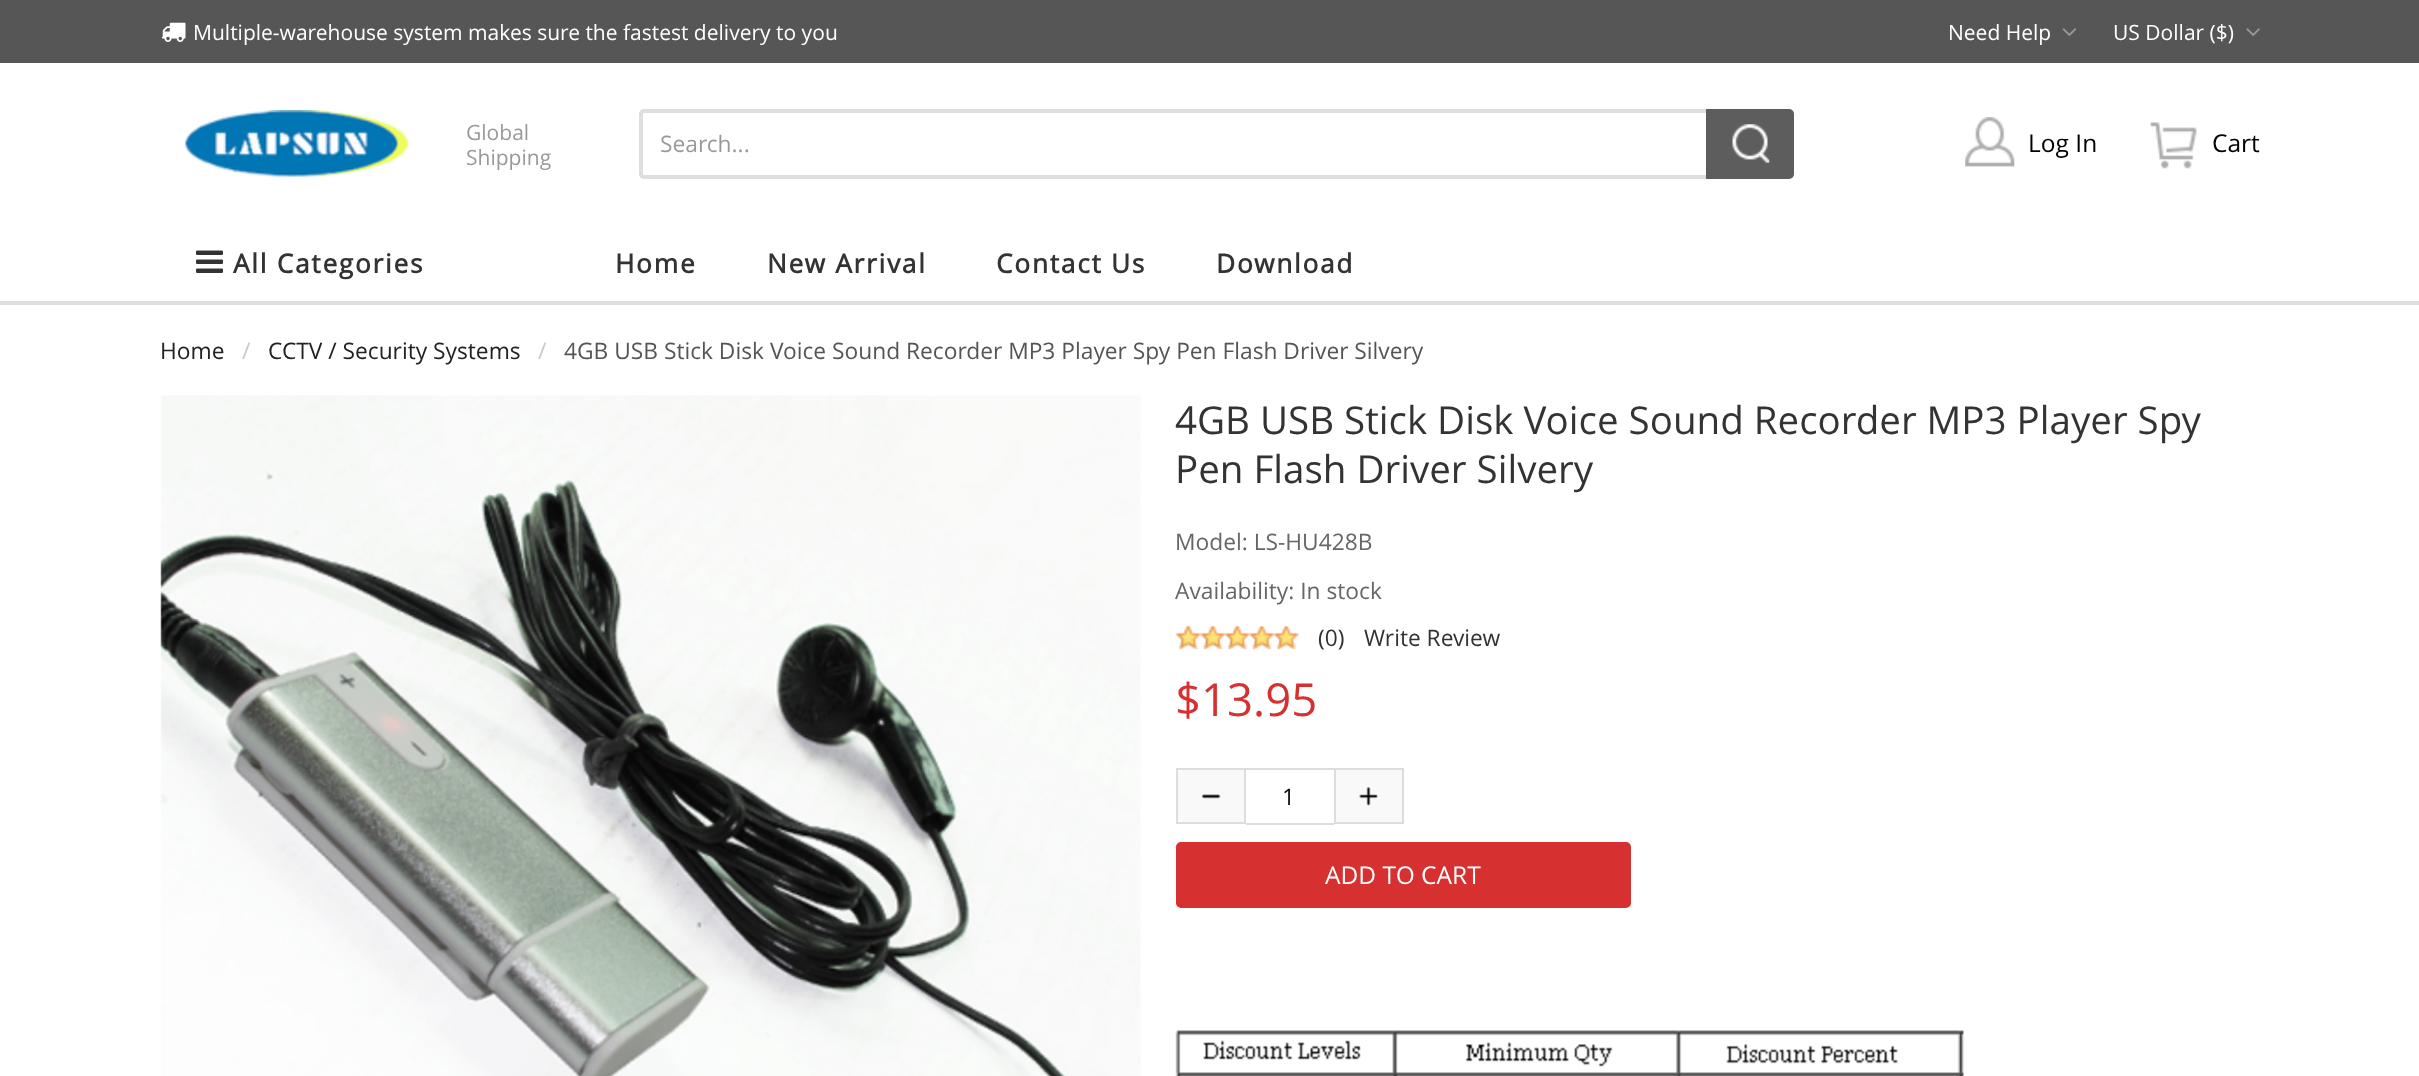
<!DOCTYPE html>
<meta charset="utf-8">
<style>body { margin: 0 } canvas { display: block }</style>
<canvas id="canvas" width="2419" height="1076"></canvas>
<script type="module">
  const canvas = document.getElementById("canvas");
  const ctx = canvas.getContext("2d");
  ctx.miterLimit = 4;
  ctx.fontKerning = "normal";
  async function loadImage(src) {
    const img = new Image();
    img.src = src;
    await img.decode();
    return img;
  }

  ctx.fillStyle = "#ffffff";
  ctx.fillRect(0, 0, 2419, 1076);
  ctx.fillStyle = "#565656";
  ctx.fillRect(0, 0, 2419, 63);
  ctx.drawImage(await loadImage("img1.png"), 161, 22, 25, 20);
  ctx.font = "21px Open Sans";
  ctx.fillStyle = "#ffffff";
  ctx.fillText("Multiple-warehouse system makes sure the fastest delivery to you", 193, 40);
  ctx.fillText("Need Help", 1948, 40);
  ctx.drawImage(await loadImage("img2.png"), 2062, 28, 15, 8);
  ctx.fillText("US Dollar ($)", 2113, 40);
  ctx.drawImage(await loadImage("img3.png"), 2246, 28, 14, 8);
  ctx.drawImage(await loadImage("img4.png"), 184, 110, 225, 68);
  ctx.fillStyle = "#999999";
  ctx.fillText("Global", 466, 140);
  ctx.fillText("Shipping", 466, 165);
  ctx.beginPath();
  ctx.roundRect(641, 111, 1151, 66, 3);
  ctx.strokeStyle = "#dedede";
  ctx.lineWidth = 4;
  ctx.stroke();
  ctx.font = "22.75px Open Sans";
  ctx.fillText("Search...", 660, 152);
  ctx.fillStyle = "#5d5d5d";
  ctx.beginPath();
  ctx.roundRect(1706, 109, 88, 70, [0, 5, 5, 0]);
  ctx.fill();
  ctx.drawImage(await loadImage("img5.png"), 1732, 124, 38, 39);
  ctx.drawImage(await loadImage("img6.png"), 1965, 117, 50, 50);
  ctx.font = "24.5px Open Sans";
  ctx.fillStyle = "#000000";
  ctx.fillText("Log In", 2028, 152);
  ctx.drawImage(await loadImage("img7.png"), 2150, 122, 47, 47);
  ctx.fillText("Cart", 2212, 152);
  ctx.fillStyle = "#dedede";
  ctx.fillRect(0, 301, 2419, 4);
  ctx.drawImage(await loadImage("img8.png"), 196, 250, 27, 23);
  ctx.letterSpacing = "1.75px";
  ctx.font = "bold 26.25px Open Sans";
  ctx.fillStyle = "#333333";
  ctx.fillText("All Categories", 233, 273);
  ctx.fillText("Home", 615, 273);
  ctx.fillText("New Arrival", 767, 273);
  ctx.fillText("Contact Us", 996, 273);
  ctx.fillText("Download", 1216, 273);
  ctx.letterSpacing = "0px";
  ctx.font = "22.75px Open Sans";
  ctx.fillStyle = "#222222";
  ctx.fillText("Home", 160, 359);
  ctx.fillStyle = "#cacaca";
  ctx.fillText("/", 242, 359);
  ctx.fillStyle = "#222222";
  ctx.fillText("CCTV / Security Systems", 268, 359);
  ctx.fillStyle = "#cacaca";
  ctx.fillText("/", 538, 359);
  ctx.fillStyle = "#555555";
  ctx.fillText("4GB USB Stick Disk Voice Sound Recorder MP3 Player Spy Pen Flash Driver Silvery", 564, 359);
  ctx.drawImage(await loadImage("img9.png"), 160, 395, 981, 681);
  ctx.font = "38.5px Open Sans";
  ctx.fillStyle = "#333333";
  ctx.fillText("4GB USB Stick Disk Voice Sound Recorder MP3 Player Spy", 1175, 434);
  ctx.fillText("Pen Flash Driver Silvery", 1175, 483);
  ctx.font = "22.75px Open Sans";
  ctx.fillStyle = "#666666";
  ctx.fillText("Model: LS-HU428B", 1175, 550);
  ctx.fillText("Availability: In stock", 1175, 599);
  ctx.drawImage(await loadImage("img10.png"), 1175, 626, 125, 24);
  ctx.fillStyle = "#333333";
  ctx.fillText("(0)", 1318, 646);
  ctx.fillText("Write Review", 1364, 646);
  ctx.font = "45.5px Open Sans";
  ctx.fillStyle = "#d63030";
  ctx.fillText("$13.95", 1175, 716);
  ctx.fillStyle = "#f9f9f9";
  ctx.fillRect(1178, 770, 66, 52);
  ctx.drawImage(await loadImage("img11.png"), 1202, 794, 19, 5);
  ctx.strokeStyle = "#dddddd";
  ctx.lineWidth = 2;
  ctx.strokeRect(1177, 769, 68, 54);
  ctx.fillStyle = "#dddddd";
  ctx.fillRect(1246, 768, 88, 2);
  ctx.fillRect(1246, 823, 88, 2);
  ctx.font = "22.75px Open Sans";
  ctx.fillStyle = "#0a0a0a";
  ctx.fillText("1", 1282, 805);
  ctx.fillStyle = "#f9f9f9";
  ctx.fillRect(1336, 770, 66, 52);
  ctx.drawImage(await loadImage("img12.png"), 1359, 787, 19, 19);
  ctx.strokeRect(1335, 769, 68, 54);
  ctx.fillStyle = "#d63030";
  ctx.beginPath();
  ctx.roundRect(1177, 843, 453, 64, 4);
  ctx.fill();
  ctx.strokeStyle = "#d63030";
  ctx.stroke();
  ctx.font = "24.5px Open Sans";
  ctx.fillStyle = "#ffffff";
  ctx.fillText("ADD TO CART", 1325, 884);
  ctx.drawImage(await loadImage("img13.png"), 1175, 1030, 789, 46);
</script>
